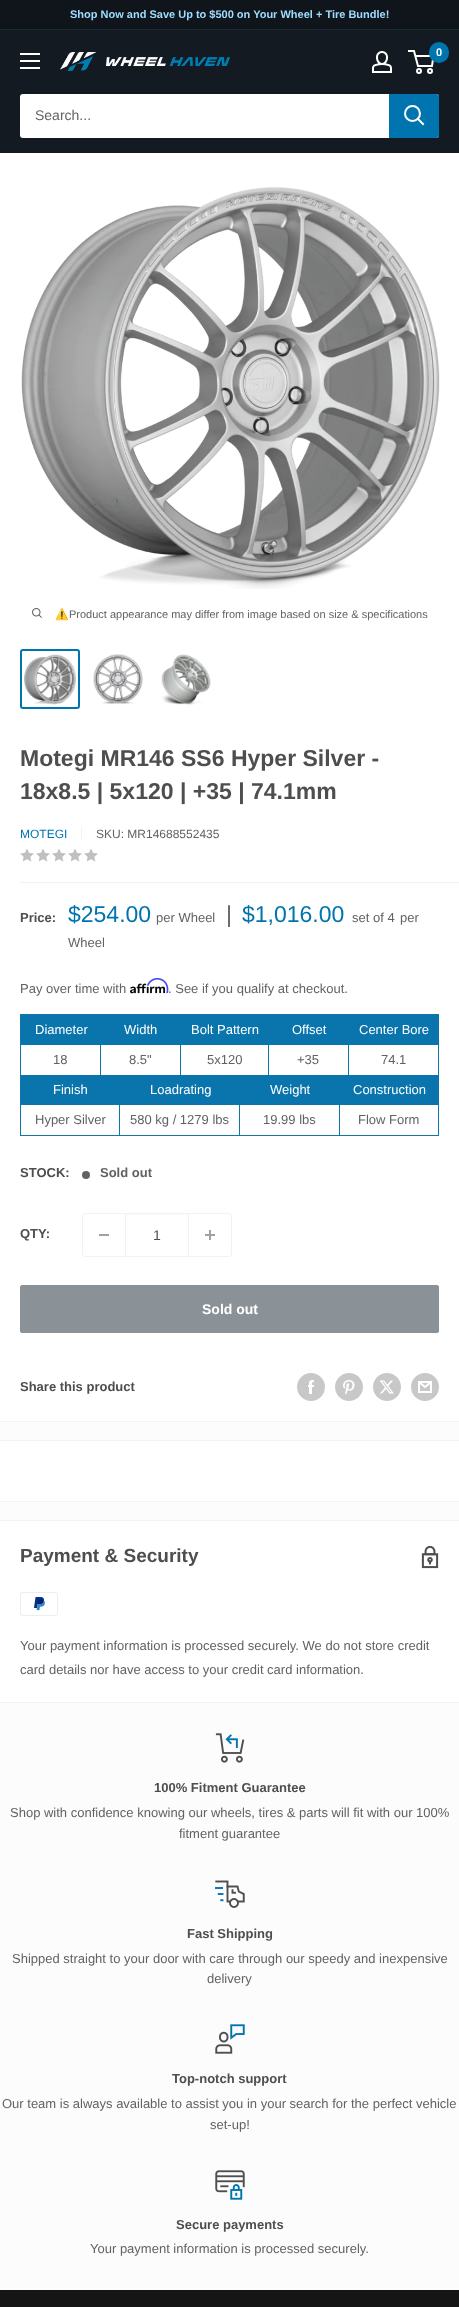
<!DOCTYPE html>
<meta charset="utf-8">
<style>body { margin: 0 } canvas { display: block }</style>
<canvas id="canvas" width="459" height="2307"></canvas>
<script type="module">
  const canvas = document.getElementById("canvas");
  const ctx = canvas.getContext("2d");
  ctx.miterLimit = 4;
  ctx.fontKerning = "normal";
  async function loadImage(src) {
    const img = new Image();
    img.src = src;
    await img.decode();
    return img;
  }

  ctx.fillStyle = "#fcfcfc";
  ctx.fillRect(0, 0, 459, 2307);
  ctx.fillStyle = "#0f151b";
  ctx.fillRect(0, 0, 459, 29);
  ctx.fillStyle = "#1a2a35";
  ctx.fillRect(0, 29, 459, 1);
  ctx.font = "bold 11px Liberation Sans";
  ctx.fillStyle = "#9eddff";
  ctx.fillText("Shop Now and Save Up to $500 on Your Wheel + Tire Bundle!", 70, 18);
  ctx.fillStyle = "#131a22";
  ctx.fillRect(0, 30, 459, 123);
  ctx.drawImage(await loadImage("img1.png"), 20, 53, 20, 16);
  ctx.drawImage(await loadImage("img2.png"), 60, 52, 170, 19);
  ctx.drawImage(await loadImage("img3.png"), 372, 51, 20, 22);
  ctx.beginPath();
  ctx.arc(419, 71, 2, 0, Math.PI * 2);
  ctx.strokeStyle = "#ffffff";
  ctx.lineWidth = 2;
  ctx.stroke();
  ctx.beginPath();
  ctx.arc(430, 71, 2, 0, Math.PI * 2);
  ctx.stroke();
  ctx.beginPath();
  ctx.moveTo(415.5, 56);
  ctx.lineTo(433.5, 56);
  ctx.lineTo(432, 66);
  ctx.lineTo(418, 66);
  ctx.lineTo(414, 51);
  ctx.lineTo(408, 51);
  ctx.stroke();
  ctx.fillStyle = "#0074af";
  ctx.beginPath();
  ctx.roundRect(429, 42, 20, 21, 10);
  ctx.fill();
  ctx.fillStyle = "#ffffff";
  ctx.fillText("0", 436, 56);
  ctx.beginPath();
  ctx.roundRect(20, 94, 419, 44, 3);
  ctx.fill();
  ctx.font = "14px Liberation Sans";
  ctx.fillStyle = "#626262";
  ctx.fillText("Search...", 35, 120);
  ctx.fillStyle = "#0074af";
  ctx.beginPath();
  ctx.roundRect(389, 94, 50, 44, [0, 3, 3, 0]);
  ctx.fill();
  ctx.beginPath();
  ctx.moveTo(423, 124);
  ctx.lineTo(418, 119);
  ctx.lineCap = "square";
  ctx.stroke();
  ctx.beginPath();
  ctx.arc(412.5, 113.5, 7.5, 0, Math.PI * 2);
  ctx.stroke();
  ctx.fillStyle = "#ffffff";
  ctx.fillRect(0, 153, 459, 1268);
  ctx.drawImage(await loadImage("img4.png"), 21, 187, 419, 402);
  ctx.drawImage(await loadImage("img5.png"), 32, 608, 10, 10);
  ctx.font = "11px Noto Color Emoji";
  ctx.fillStyle = "#626262";
  ctx.fillText("⚠️", 55, 618);
  ctx.font = "11px Liberation Sans";
  ctx.fillText("Product appearance may differ from image based on size & specifications", 69, 618);
  ctx.beginPath();
  ctx.roundRect(21, 650, 58, 58, 2);
  ctx.strokeStyle = "#0074af";
  ctx.stroke();
  ctx.drawImage(await loadImage("img6.png"), 24, 654, 52, 51);
  ctx.drawImage(await loadImage("img7.png"), 93, 654, 50, 50);
  ctx.drawImage(await loadImage("img8.png"), 161, 654, 50, 51);
  ctx.fillStyle = "#f2f2f2";
  ctx.fillRect(0, 1421, 459, 1);
  ctx.font = "bold 23px Liberation Sans";
  ctx.fillStyle = "#4e4e4e";
  ctx.fillText("Motegi MR146 SS6 Hyper Silver -", 20, 766);
  ctx.fillText("18x8.5 | 5x120 | +35 | 74.1mm", 20, 799);
  ctx.font = "12px Liberation Sans";
  ctx.fillStyle = "#0074af";
  ctx.fillText("MOTEGI", 20, 838);
  ctx.fillStyle = "#f2f2f2";
  ctx.fillRect(81, 827, 1, 13);
  ctx.fillStyle = "#626262";
  ctx.fillText("SKU: MR14688552435", 96, 838);
  ctx.drawImage(await loadImage("img9.png"), 20, 849, 14, 13);
  ctx.drawImage(await loadImage("img9.png"), 36, 849, 14, 13);
  ctx.drawImage(await loadImage("img9.png"), 52, 849, 14, 13);
  ctx.drawImage(await loadImage("img9.png"), 68, 849, 14, 13);
  ctx.drawImage(await loadImage("img9.png"), 84, 849, 14, 13);
  ctx.fillStyle = "#f2f2f2";
  ctx.fillRect(20, 882, 439, 1);
  ctx.font = "bold 13px Liberation Sans";
  ctx.fillStyle = "#4e4e4e";
  ctx.fillText("Price:", 20, 922);
  ctx.font = "23px Liberation Sans";
  ctx.fillStyle = "#0074af";
  ctx.fillText("$254.00", 68, 922);
  ctx.font = "13px Liberation Sans";
  ctx.fillStyle = "#626262";
  ctx.fillText("per Wheel", 156, 922);
  ctx.font = "23px Liberation Sans";
  ctx.fillText("|", 226, 922);
  ctx.fillStyle = "#0074af";
  ctx.fillText("$1,016.00", 242, 922);
  ctx.font = "13px Liberation Sans";
  ctx.fillStyle = "#626262";
  ctx.fillText("set of 4", 352, 922);
  ctx.fillText("per", 400, 922);
  ctx.fillText("Wheel", 68, 947);
  ctx.fillText("Pay over time with", 20, 993);
  ctx.drawImage(await loadImage("img11.png"), 130, 983, 36, 11);
  ctx.drawImage(await loadImage("img10.png"), 146, 977, 23, 17);
  ctx.fillText(". See if you qualify at checkout.", 168, 993);
  ctx.fillStyle = "#1176a9";
  ctx.fillRect(20, 1014, 419, 1);
  ctx.fillRect(20, 1135, 419, 1);
  ctx.fillRect(20, 1014, 1, 122);
  ctx.fillStyle = "#0975ac";
  ctx.fillRect(21, 1015, 418, 30);
  ctx.fillStyle = "#ffffff";
  ctx.fillText("Diameter", 35, 1034);
  ctx.fillStyle = "#1176a9";
  ctx.fillRect(100, 1045, 1, 30);
  ctx.fillStyle = "#626262";
  ctx.fillText("18", 53, 1064);
  ctx.fillStyle = "#ffffff";
  ctx.fillText("Width", 124, 1034);
  ctx.fillStyle = "#1176a9";
  ctx.fillRect(180, 1045, 1, 30);
  ctx.fillStyle = "#626262";
  ctx.fillText("8.5\"", 129, 1064);
  ctx.fillStyle = "#ffffff";
  ctx.fillText("Bolt Pattern", 191, 1034);
  ctx.fillStyle = "#1176a9";
  ctx.fillRect(268, 1045, 1, 30);
  ctx.fillStyle = "#626262";
  ctx.fillText("5x120", 207, 1064);
  ctx.fillStyle = "#ffffff";
  ctx.fillText("Offset", 292, 1034);
  ctx.fillStyle = "#1176a9";
  ctx.fillRect(348, 1045, 1, 30);
  ctx.fillStyle = "#626262";
  ctx.fillText("+35", 297, 1064);
  ctx.fillStyle = "#ffffff";
  ctx.fillText("Center Bore", 359, 1034);
  ctx.fillStyle = "#1176a9";
  ctx.fillRect(438, 1045, 1, 30);
  ctx.fillStyle = "#626262";
  ctx.fillText("74.1", 381, 1064);
  ctx.fillStyle = "#0975ac";
  ctx.fillRect(21, 1075, 418, 30);
  ctx.fillStyle = "#ffffff";
  ctx.fillText("Finish", 53, 1094);
  ctx.fillStyle = "#1176a9";
  ctx.fillRect(119, 1105, 1, 30);
  ctx.fillStyle = "#626262";
  ctx.fillText("Hyper Silver", 35, 1124);
  ctx.fillStyle = "#ffffff";
  ctx.fillText("Loadrating", 150, 1094);
  ctx.fillStyle = "#1176a9";
  ctx.fillRect(239, 1105, 1, 30);
  ctx.fillStyle = "#626262";
  ctx.fillText("580 kg / 1279 lbs", 130, 1124);
  ctx.fillStyle = "#ffffff";
  ctx.fillText("Weight", 270, 1094);
  ctx.fillStyle = "#1176a9";
  ctx.fillRect(339, 1105, 1, 30);
  ctx.fillStyle = "#626262";
  ctx.fillText("19.99 lbs", 263, 1124);
  ctx.fillStyle = "#ffffff";
  ctx.fillText("Construction", 353, 1094);
  ctx.fillStyle = "#1176a9";
  ctx.fillRect(438, 1105, 1, 30);
  ctx.fillStyle = "#626262";
  ctx.fillText("Flow Form", 358, 1124);
  ctx.font = "bold 13px Liberation Sans";
  ctx.fillStyle = "#4e4e4e";
  ctx.fillText("STOCK:", 20, 1177);
  ctx.fillStyle = "#626262";
  ctx.beginPath();
  ctx.arc(86, 1175, 4, 0, Math.PI * 2);
  ctx.fill();
  ctx.fillText("Sold out", 100, 1177);
  ctx.fillStyle = "#4e4e4e";
  ctx.fillText("QTY:", 20, 1238);
  ctx.beginPath();
  ctx.roundRect(82.5, 1213.5, 149, 43, 2.5);
  ctx.strokeStyle = "#f2f2f2";
  ctx.lineWidth = 1;
  ctx.stroke();
  ctx.fillStyle = "#a1a1a1";
  ctx.fillRect(99, 1234, 10, 2);
  ctx.fillStyle = "#fafafa";
  ctx.fillRect(126, 1214, 62, 1);
  ctx.fillStyle = "#f2f2f2";
  ctx.fillRect(188, 1214, 1, 42);
  ctx.fillRect(125, 1214, 1, 42);
  ctx.font = "14px Liberation Sans";
  ctx.fillStyle = "#4e4e4e";
  ctx.fillText("1", 153, 1240);
  ctx.drawImage(await loadImage("img12.png"), 205, 1230, 10, 10);
  ctx.fillStyle = "#8a9297";
  ctx.beginPath();
  ctx.roundRect(20.5, 1285.5, 418, 47, 1.5);
  ctx.fill();
  ctx.strokeStyle = "#8a9297";
  ctx.stroke();
  ctx.font = "bold 14px Liberation Sans";
  ctx.fillStyle = "#ffffff";
  ctx.fillText("Sold out", 202, 1314);
  ctx.font = "bold 13px Liberation Sans";
  ctx.fillStyle = "#4e4e4e";
  ctx.fillText("Share this product", 20, 1391);
  ctx.drawImage(await loadImage("img13.png"), 297, 1373, 28, 28);
  ctx.drawImage(await loadImage("img14.png"), 335, 1373, 28, 28);
  ctx.drawImage(await loadImage("img15.png"), 373, 1373, 28, 28);
  ctx.drawImage(await loadImage("img16.png"), 411, 1373, 28, 28);
  ctx.fillStyle = "#ffffff";
  ctx.fillRect(0, 1441, 459, 60);
  ctx.fillStyle = "#f2f2f2";
  ctx.fillRect(0, 1440, 459, 1);
  ctx.fillRect(0, 1501, 459, 1);
  ctx.fillStyle = "#ffffff";
  ctx.fillRect(0, 1521, 459, 181);
  ctx.fillStyle = "#f2f2f2";
  ctx.fillRect(0, 1520, 459, 1);
  ctx.fillRect(0, 1702, 459, 1);
  ctx.font = "bold 19px Liberation Sans";
  ctx.fillStyle = "#4e4e4e";
  ctx.fillText("Payment & Security", 20, 1562);
  ctx.drawImage(await loadImage("img17.png"), 421, 1545, 18, 24);
  ctx.drawImage(await loadImage("img18.png"), 20, 1592, 38, 24);
  ctx.font = "13px Liberation Sans";
  ctx.fillStyle = "#626262";
  ctx.fillText("Your payment information is processed securely. We do not store credit", 20, 1650);
  ctx.fillText("card details nor have access to your credit card information.", 20, 1674);
  ctx.drawImage(await loadImage("img19.png"), 215, 1733, 30, 30);
  ctx.font = "bold 13px Liberation Sans";
  ctx.fillStyle = "#4e4e4e";
  ctx.fillText("100% Fitment Guarantee", 154, 1792);
  ctx.font = "13px Liberation Sans";
  ctx.fillStyle = "#626262";
  ctx.fillText("Shop with confidence knowing our wheels, tires & parts will fit with our 100%", 10, 1817);
  ctx.fillText("fitment guarantee", 179, 1838);
  ctx.drawImage(await loadImage("img20.png"), 215, 1880, 30, 28);
  ctx.font = "bold 13px Liberation Sans";
  ctx.fillStyle = "#4e4e4e";
  ctx.fillText("Fast Shipping", 187, 1938);
  ctx.font = "13px Liberation Sans";
  ctx.fillStyle = "#626262";
  ctx.fillText("Shipped straight to your door with care through our speedy and inexpensive", 12, 1963);
  ctx.fillText("delivery", 207, 1983);
  ctx.drawImage(await loadImage("img21.png"), 215, 2024, 30, 30);
  ctx.font = "bold 13px Liberation Sans";
  ctx.fillStyle = "#4e4e4e";
  ctx.fillText("Top-notch support", 172, 2083);
  ctx.font = "13px Liberation Sans";
  ctx.fillStyle = "#626262";
  ctx.fillText("Our team is always available to assist you in your search for the perfect vehicle", 2, 2108);
  ctx.fillText("set-up!", 210, 2129);
  ctx.drawImage(await loadImage("img22.png"), 215, 2170, 30, 30);
  ctx.font = "bold 13px Liberation Sans";
  ctx.fillStyle = "#4e4e4e";
  ctx.fillText("Secure payments", 176, 2229);
  ctx.font = "13px Liberation Sans";
  ctx.fillStyle = "#626262";
  ctx.fillText("Your payment information is processed securely.", 90, 2253);
  ctx.fillStyle = "#151515";
  ctx.fillRect(0, 2290, 459, 17);
</script>
